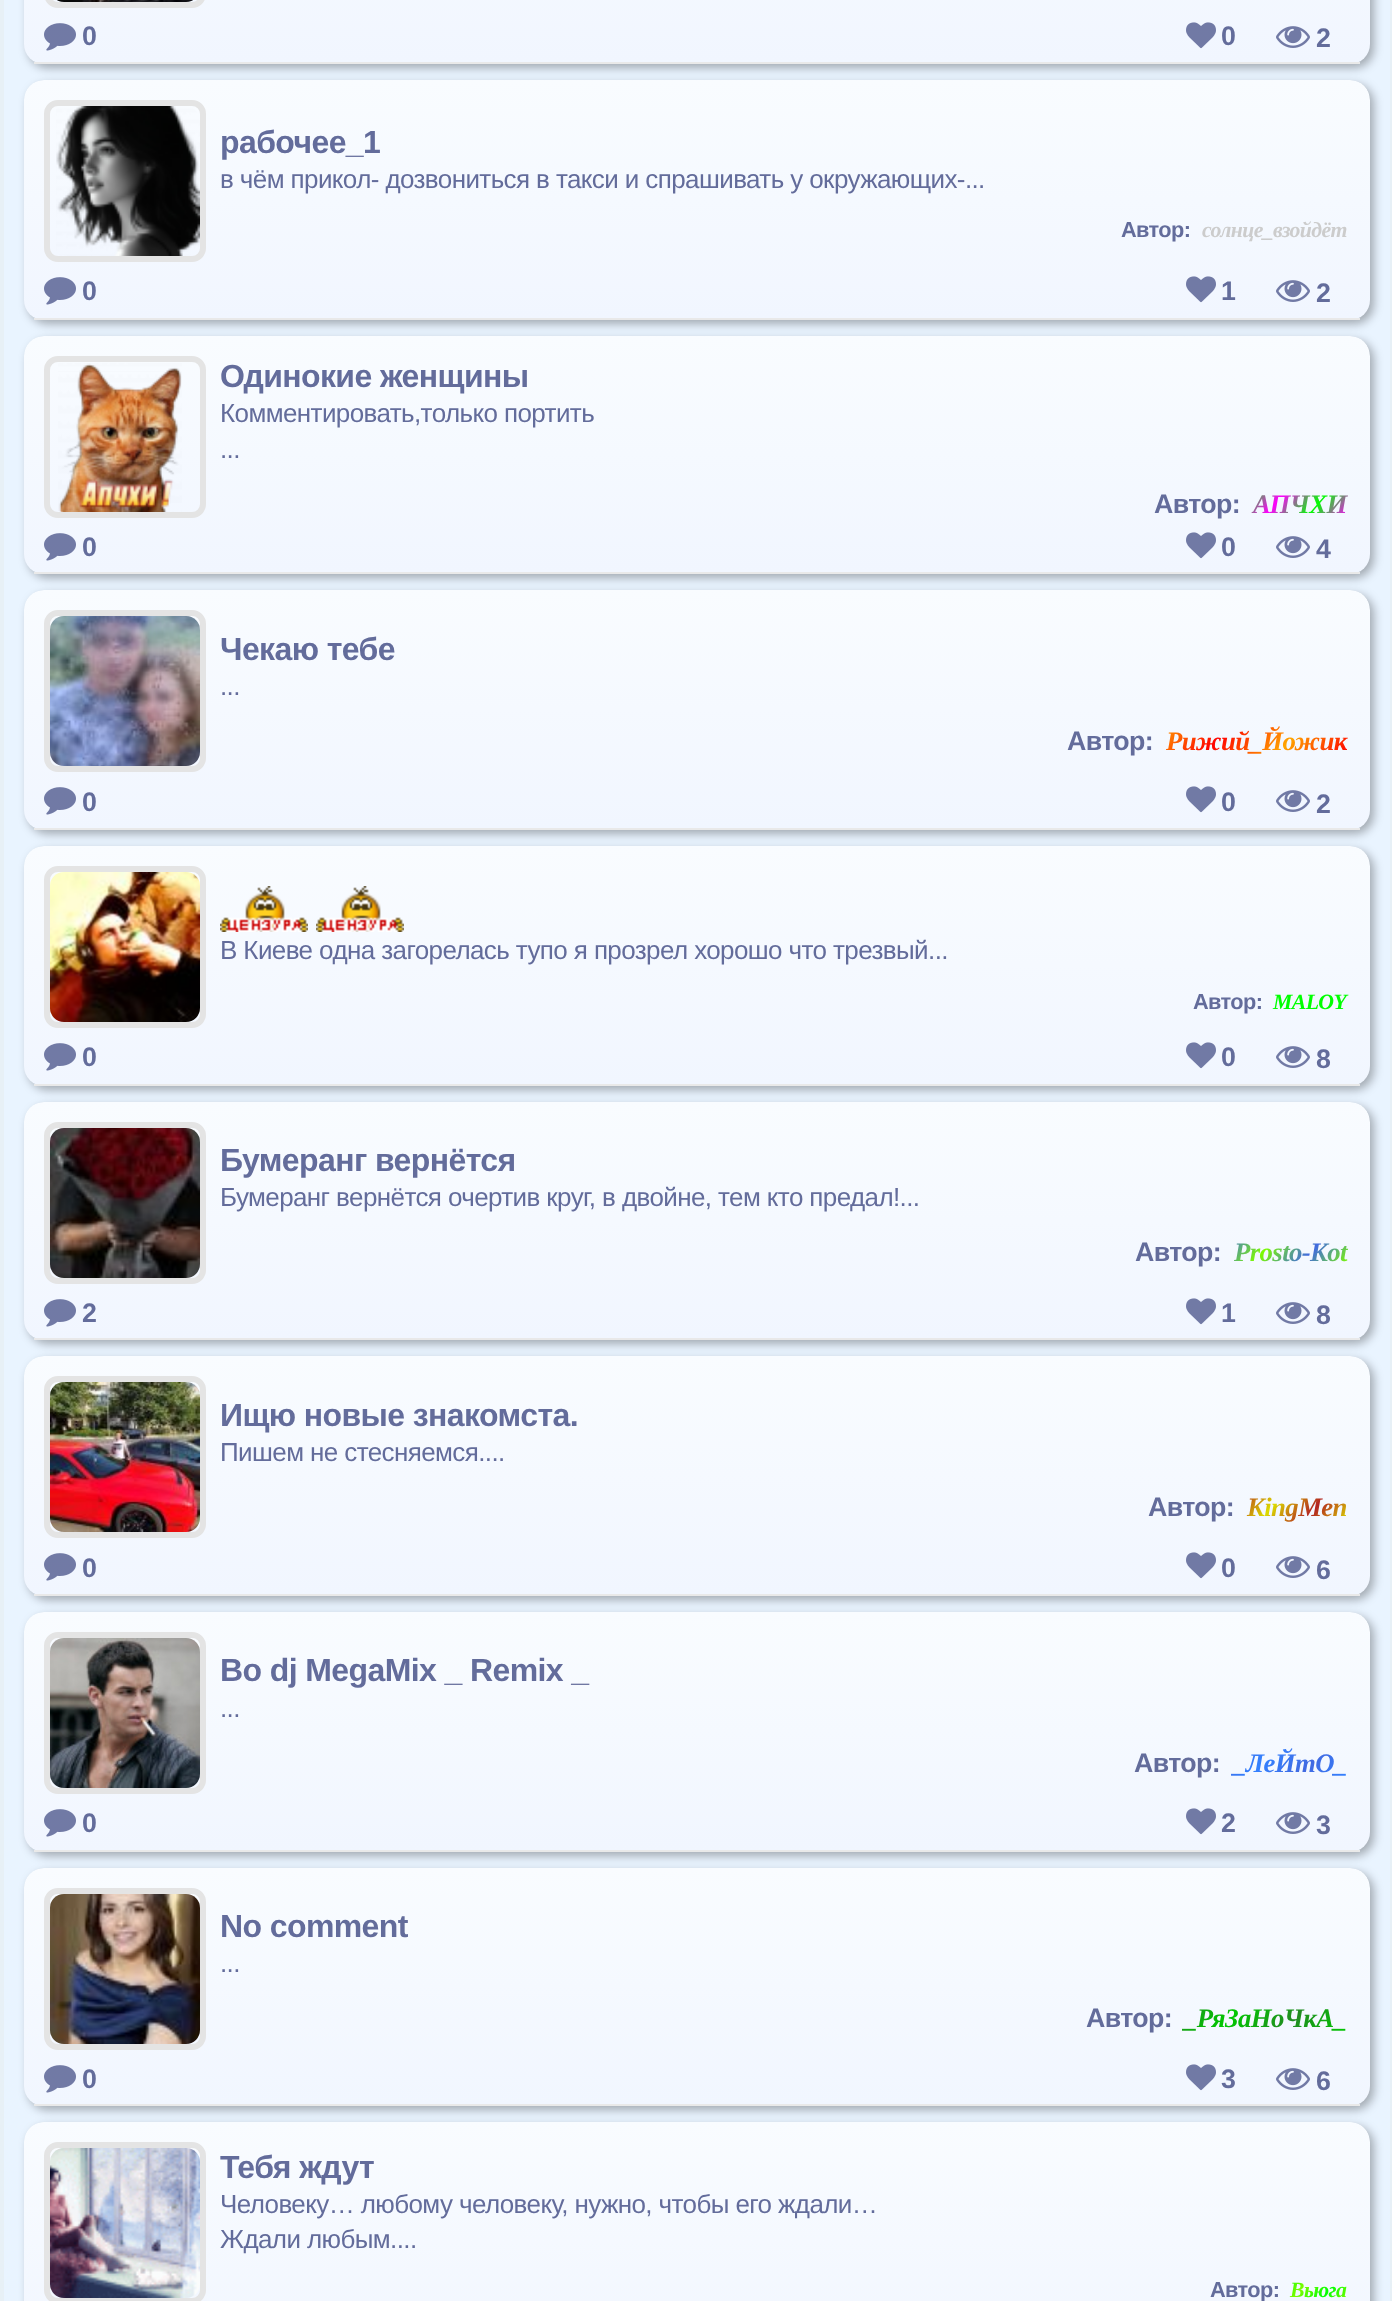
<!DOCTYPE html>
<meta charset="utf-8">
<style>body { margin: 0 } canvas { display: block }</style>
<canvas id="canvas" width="1392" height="2301"></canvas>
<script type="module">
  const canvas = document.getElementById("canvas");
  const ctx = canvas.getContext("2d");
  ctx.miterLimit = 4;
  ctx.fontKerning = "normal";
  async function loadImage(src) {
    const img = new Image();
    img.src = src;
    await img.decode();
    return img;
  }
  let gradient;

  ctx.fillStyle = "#e7f0f6";
  ctx.fillRect(0, 0, 1392, 2301);
  ctx.fillStyle = "#e9f4ff";
  ctx.fillRect(4, 0, 1386, 2301);
  ctx.fillStyle = "rgba(0, 0, 0, 0.3)";
  ctx.filter = "blur(5px)";
  ctx.beginPath();
  ctx.roundRect(28, -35, 1346, 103, 20);
  ctx.fill();
  ctx.filter = "none";
  ctx.save();
  ctx.beginPath();
  ctx.roundRect(24, -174, 1346, 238, 20);
  ctx.clip();
  gradient = ctx.createLinearGradient(24, -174, 24, 62);
  gradient.addColorStop(0, "#f9fcff");
  gradient.addColorStop(1, "#f1f6ff");
  ctx.fillStyle = gradient;
  ctx.beginPath();
  ctx.moveTo(44, -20);
  ctx.lineTo(1350, -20);
  ctx.bezierCurveTo(1361, -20, 1370, -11, 1370, 0);
  ctx.lineTo(1370, 62);
  ctx.lineTo(24, 62);
  ctx.lineTo(24, 0);
  ctx.bezierCurveTo(24, -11, 33, -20, 44, -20);
  ctx.closePath();
  ctx.fill();
  ctx.restore();
  ctx.fillStyle = "#e9e9e9";
  ctx.fillRect(34, 62, 1326, 2);
  ctx.beginPath();
  ctx.roundRect(47, -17, 156, 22, 11);
  ctx.strokeStyle = "#e4e4e4";
  ctx.lineWidth = 6;
  ctx.stroke();
  ctx.drawImage(await loadImage("img1.png"), 57, 0, 136, 2);
  ctx.drawImage(await loadImage("img2.png"), 44, 23, 32, 28);
  ctx.letterSpacing = "-0.6px";
  ctx.font = "bold 26.75px Liberation Sans";
  ctx.fillStyle = "#636c9b";
  ctx.fillText("0", 82, 45);
  ctx.drawImage(await loadImage("img3.png"), 1186, 22, 30, 27);
  ctx.fillText("0", 1221, 45);
  ctx.drawImage(await loadImage("img4.png"), 1276, 26, 34, 22);
  ctx.fillText("2", 1316, 47);
  ctx.fillStyle = "rgba(0, 0, 0, 0.3)";
  ctx.filter = "blur(5px)";
  ctx.beginPath();
  ctx.roundRect(28, 84, 1346, 240, 20);
  ctx.fill();
  ctx.filter = "none";
  ctx.save();
  ctx.beginPath();
  ctx.roundRect(24, 80, 1346, 240, 20);
  ctx.clip();
  gradient = ctx.createLinearGradient(24, 80, 24, 318);
  gradient.addColorStop(0, "#f9fcff");
  gradient.addColorStop(1, "#f1f6ff");
  ctx.fillStyle = gradient;
  ctx.beginPath();
  ctx.roundRect(24, 80, 1346, 238, [20, 20, 0, 0]);
  ctx.fill();
  ctx.restore();
  ctx.fillStyle = "#e9e9e9";
  ctx.fillRect(34, 318, 1326, 2);
  ctx.beginPath();
  ctx.roundRect(47, 103, 156, 156, 11);
  ctx.stroke();
  ctx.drawImage(await loadImage("img5.png"), 56, 106, 144, 150);
  ctx.font = "bold 32px Liberation Sans";
  ctx.fillStyle = "#636c9b";
  ctx.fillText("рабочее_1", 220, 153);
  ctx.font = "26px Liberation Sans";
  ctx.fillText("в чём прикол- дозвониться в такси и спрашивать у окружающих-...", 220, 188);
  ctx.font = "bold 21.75px Liberation Sans";
  ctx.fillText("Автор:", 1121, 237);
  ctx.font = "italic bold 21.75px Liberation Serif";
  ctx.fillStyle = "#cccccc";
  ctx.fillText("солнце_взойдёт", 1202, 237);
  ctx.drawImage(await loadImage("img6.png"), 44, 277, 32, 28);
  ctx.font = "bold 26.75px Liberation Sans";
  ctx.fillStyle = "#636c9b";
  ctx.fillText("0", 82, 300);
  ctx.drawImage(await loadImage("img7.png"), 1186, 276, 30, 27);
  ctx.fillText("1", 1221, 300);
  ctx.drawImage(await loadImage("img8.png"), 1276, 280, 34, 22);
  ctx.fillText("2", 1316, 302);
  ctx.fillStyle = "rgba(0, 0, 0, 0.3)";
  ctx.filter = "blur(5px)";
  ctx.beginPath();
  ctx.roundRect(28, 340, 1346, 238, 20);
  ctx.fill();
  ctx.filter = "none";
  ctx.save();
  ctx.beginPath();
  ctx.roundRect(24, 336, 1346, 238, 20);
  ctx.clip();
  gradient = ctx.createLinearGradient(24, 336, 24, 572);
  gradient.addColorStop(0, "#f9fcff");
  gradient.addColorStop(1, "#f1f6ff");
  ctx.fillStyle = gradient;
  ctx.beginPath();
  ctx.roundRect(24, 336, 1346, 236, [20, 20, 0, 0]);
  ctx.fill();
  ctx.restore();
  ctx.fillStyle = "#e9e9e9";
  ctx.fillRect(34, 572, 1326, 2);
  ctx.beginPath();
  ctx.roundRect(47, 359, 156, 156, 11);
  ctx.stroke();
  ctx.drawImage(await loadImage("img9.png"), 58, 363, 124, 149);
  ctx.font = "bold 32px Liberation Sans";
  ctx.fillStyle = "#636c9b";
  ctx.fillText("Одинокие женщины", 220, 387);
  ctx.font = "26px Liberation Sans";
  ctx.fillText("Комментировать,только портить", 220, 422);
  ctx.fillText("...", 220, 458);
  ctx.font = "bold 26.75px Liberation Sans";
  ctx.fillText("Автор:", 1154, 513);
  ctx.font = "italic bold 26.75px Liberation Serif";
  gradient = ctx.createLinearGradient(1260, 473, 1333, 534);
  gradient.addColorStop(0, "#00ff00");
  gradient.addColorStop(0.33, "#ff00ff");
  gradient.addColorStop(0.67, "#00ff00");
  gradient.addColorStop(1, "#ff00ff");
  ctx.fillStyle = gradient;
  ctx.fillText("АПЧХИ", 1253, 513);
  ctx.drawImage(await loadImage("img2.png"), 44, 533, 32, 28);
  ctx.font = "bold 26.75px Liberation Sans";
  ctx.fillStyle = "#636c9b";
  ctx.fillText("0", 82, 556);
  ctx.drawImage(await loadImage("img3.png"), 1186, 532, 30, 27);
  ctx.fillText("0", 1221, 556);
  ctx.drawImage(await loadImage("img4.png"), 1276, 536, 34, 22);
  ctx.fillText("4", 1316, 558);
  ctx.fillStyle = "rgba(0, 0, 0, 0.3)";
  ctx.filter = "blur(5px)";
  ctx.beginPath();
  ctx.roundRect(28, 594, 1346, 240, 20);
  ctx.fill();
  ctx.filter = "none";
  ctx.save();
  ctx.beginPath();
  ctx.roundRect(24, 590, 1346, 240, 20);
  ctx.clip();
  gradient = ctx.createLinearGradient(24, 590, 24, 828);
  gradient.addColorStop(0, "#f9fcff");
  gradient.addColorStop(1, "#f1f6ff");
  ctx.fillStyle = gradient;
  ctx.beginPath();
  ctx.roundRect(24, 590, 1346, 238, [20, 20, 0, 0]);
  ctx.fill();
  ctx.restore();
  ctx.fillStyle = "#e9e9e9";
  ctx.fillRect(34, 828, 1326, 2);
  ctx.beginPath();
  ctx.roundRect(47, 613, 156, 156, 11);
  ctx.stroke();
  ctx.drawImage(await loadImage("img10.png"), 50, 616, 150, 150);
  ctx.font = "bold 32px Liberation Sans";
  ctx.fillStyle = "#636c9b";
  ctx.fillText("Чекаю тебе", 220, 660);
  ctx.font = "26px Liberation Sans";
  ctx.fillText("...", 220, 695);
  ctx.font = "bold 26.75px Liberation Sans";
  ctx.fillText("Автор:", 1067, 750);
  ctx.font = "italic bold 26.75px Liberation Serif";
  gradient = ctx.createLinearGradient(1191, 689, 1315, 793);
  gradient.addColorStop(0, "#ffa500");
  gradient.addColorStop(0.33, "#ff0000");
  gradient.addColorStop(0.67, "#ffa500");
  gradient.addColorStop(1, "#ff0000");
  ctx.fillStyle = gradient;
  ctx.fillText("Рижий_Йожик", 1166, 750);
  ctx.drawImage(await loadImage("img6.png"), 44, 787, 32, 28);
  ctx.font = "bold 26.75px Liberation Sans";
  ctx.fillStyle = "#636c9b";
  ctx.fillText("0", 82, 811);
  ctx.drawImage(await loadImage("img7.png"), 1186, 786, 30, 27);
  ctx.fillText("0", 1221, 811);
  ctx.drawImage(await loadImage("img8.png"), 1276, 790, 34, 22);
  ctx.fillText("2", 1316, 813);
  ctx.fillStyle = "rgba(0, 0, 0, 0.3)";
  ctx.filter = "blur(5px)";
  ctx.beginPath();
  ctx.roundRect(28, 850, 1346, 240, 20);
  ctx.fill();
  ctx.filter = "none";
  ctx.save();
  ctx.beginPath();
  ctx.roundRect(24, 846, 1346, 240, 20);
  ctx.clip();
  gradient = ctx.createLinearGradient(24, 846, 24, 1084);
  gradient.addColorStop(0, "#f9fcff");
  gradient.addColorStop(1, "#f1f6ff");
  ctx.fillStyle = gradient;
  ctx.beginPath();
  ctx.roundRect(24, 846, 1346, 238, [20, 20, 0, 0]);
  ctx.fill();
  ctx.restore();
  ctx.fillStyle = "#e9e9e9";
  ctx.fillRect(34, 1084, 1326, 2);
  ctx.beginPath();
  ctx.roundRect(47, 869, 156, 156, 11);
  ctx.stroke();
  ctx.drawImage(await loadImage("img11.png"), 50, 872, 150, 150);
  ctx.drawImage(await loadImage("img12.png"), 220, 886, 88, 46);
  ctx.drawImage(await loadImage("img12.png"), 316, 886, 88, 46);
  ctx.font = "26px Liberation Sans";
  ctx.fillStyle = "#636c9b";
  ctx.fillText("В Киеве одна загорелась тупо я прозрел хорошо что трезвый...", 220, 959);
  ctx.font = "bold 21.75px Liberation Sans";
  ctx.fillText("Автор:", 1193, 1009);
  ctx.font = "italic bold 21.75px Liberation Serif";
  ctx.fillStyle = "#00ff00";
  ctx.fillText("MALOY", 1273, 1009);
  ctx.drawImage(await loadImage("img6.png"), 44, 1043, 32, 28);
  ctx.font = "bold 26.75px Liberation Sans";
  ctx.fillStyle = "#636c9b";
  ctx.fillText("0", 82, 1066);
  ctx.drawImage(await loadImage("img7.png"), 1186, 1042, 30, 27);
  ctx.fillText("0", 1221, 1066);
  ctx.drawImage(await loadImage("img8.png"), 1276, 1046, 34, 22);
  ctx.fillText("8", 1316, 1068);
  ctx.fillStyle = "rgba(0, 0, 0, 0.3)";
  ctx.filter = "blur(5px)";
  ctx.beginPath();
  ctx.roundRect(28, 1106, 1346, 238, 20);
  ctx.fill();
  ctx.filter = "none";
  ctx.save();
  ctx.beginPath();
  ctx.roundRect(24, 1102, 1346, 238, 20);
  ctx.clip();
  gradient = ctx.createLinearGradient(24, 1102, 24, 1338);
  gradient.addColorStop(0, "#f9fcff");
  gradient.addColorStop(1, "#f1f6ff");
  ctx.fillStyle = gradient;
  ctx.beginPath();
  ctx.roundRect(24, 1102, 1346, 236, [20, 20, 0, 0]);
  ctx.fill();
  ctx.restore();
  ctx.fillStyle = "#e9e9e9";
  ctx.fillRect(34, 1338, 1326, 2);
  ctx.beginPath();
  ctx.roundRect(47, 1125, 156, 156, 11);
  ctx.stroke();
  ctx.drawImage(await loadImage("img13.png"), 50, 1128, 150, 150);
  ctx.font = "bold 32px Liberation Sans";
  ctx.fillStyle = "#636c9b";
  ctx.fillText("Бумеранг вернётся", 220, 1171);
  ctx.font = "26px Liberation Sans";
  ctx.fillText("Бумеранг вернётся очертив круг, в двойне, тем кто предал!...", 220, 1206);
  ctx.font = "bold 26.75px Liberation Sans";
  ctx.fillText("Автор:", 1135, 1261);
  ctx.font = "italic bold 26.75px Liberation Serif";
  gradient = ctx.createLinearGradient(1245, 1217, 1329, 1287);
  gradient.addColorStop(0, "#4169e1");
  gradient.addColorStop(0.33, "#7cfc00");
  gradient.addColorStop(0.67, "#4169e1");
  gradient.addColorStop(1, "#7cfc00");
  ctx.fillStyle = gradient;
  ctx.fillText("Prosto-Kot", 1234, 1261);
  ctx.drawImage(await loadImage("img2.png"), 44, 1299, 32, 28);
  ctx.font = "bold 26.75px Liberation Sans";
  ctx.fillStyle = "#636c9b";
  ctx.fillText("2", 82, 1322);
  ctx.drawImage(await loadImage("img3.png"), 1186, 1298, 30, 27);
  ctx.fillText("1", 1221, 1322);
  ctx.drawImage(await loadImage("img4.png"), 1276, 1302, 34, 22);
  ctx.fillText("8", 1316, 1324);
  ctx.fillStyle = "rgba(0, 0, 0, 0.3)";
  ctx.filter = "blur(5px)";
  ctx.beginPath();
  ctx.roundRect(28, 1360, 1346, 240, 20);
  ctx.fill();
  ctx.filter = "none";
  ctx.save();
  ctx.beginPath();
  ctx.roundRect(24, 1356, 1346, 240, 20);
  ctx.clip();
  gradient = ctx.createLinearGradient(24, 1356, 24, 1594);
  gradient.addColorStop(0, "#f9fcff");
  gradient.addColorStop(1, "#f1f6ff");
  ctx.fillStyle = gradient;
  ctx.beginPath();
  ctx.roundRect(24, 1356, 1346, 238, [20, 20, 0, 0]);
  ctx.fill();
  ctx.restore();
  ctx.fillStyle = "#e9e9e9";
  ctx.fillRect(34, 1594, 1326, 2);
  ctx.beginPath();
  ctx.roundRect(47, 1379, 156, 156, 11);
  ctx.stroke();
  ctx.drawImage(await loadImage("img14.png"), 50, 1382, 150, 150);
  ctx.font = "bold 32px Liberation Sans";
  ctx.fillStyle = "#636c9b";
  ctx.fillText("Ищю новые знакомста.", 220, 1426);
  ctx.font = "26px Liberation Sans";
  ctx.fillText("Пишем не стесняемся....", 220, 1461);
  ctx.font = "bold 26.75px Liberation Sans";
  ctx.fillText("Автор:", 1148, 1516);
  ctx.font = "italic bold 26.75px Liberation Serif";
  gradient = ctx.createLinearGradient(1255, 1475, 1332, 1540);
  gradient.addColorStop(0, "#b22222");
  gradient.addColorStop(0.33, "#dcdc00");
  gradient.addColorStop(0.67, "#b22222");
  gradient.addColorStop(1, "#dcdc00");
  ctx.fillStyle = gradient;
  ctx.fillText("KingMen", 1247, 1516);
  ctx.drawImage(await loadImage("img6.png"), 44, 1553, 32, 28);
  ctx.font = "bold 26.75px Liberation Sans";
  ctx.fillStyle = "#636c9b";
  ctx.fillText("0", 82, 1577);
  ctx.drawImage(await loadImage("img7.png"), 1186, 1552, 30, 27);
  ctx.fillText("0", 1221, 1577);
  ctx.drawImage(await loadImage("img8.png"), 1276, 1556, 34, 22);
  ctx.fillText("6", 1316, 1579);
  ctx.fillStyle = "rgba(0, 0, 0, 0.3)";
  ctx.filter = "blur(5px)";
  ctx.beginPath();
  ctx.roundRect(28, 1616, 1346, 240, 20);
  ctx.fill();
  ctx.filter = "none";
  ctx.save();
  ctx.beginPath();
  ctx.roundRect(24, 1612, 1346, 240, 20);
  ctx.clip();
  gradient = ctx.createLinearGradient(24, 1612, 24, 1850);
  gradient.addColorStop(0, "#f9fcff");
  gradient.addColorStop(1, "#f1f6ff");
  ctx.fillStyle = gradient;
  ctx.beginPath();
  ctx.roundRect(24, 1612, 1346, 238, [20, 20, 0, 0]);
  ctx.fill();
  ctx.restore();
  ctx.fillStyle = "#e9e9e9";
  ctx.fillRect(34, 1850, 1326, 2);
  ctx.beginPath();
  ctx.roundRect(47, 1635, 156, 156, 11);
  ctx.stroke();
  ctx.drawImage(await loadImage("img15.png"), 50, 1638, 150, 150);
  ctx.font = "bold 32px Liberation Sans";
  ctx.fillStyle = "#636c9b";
  ctx.fillText("Bo dj MegaMix _ Remix _", 220, 1681);
  ctx.font = "26px Liberation Sans";
  ctx.fillText("...", 220, 1717);
  ctx.font = "bold 26.75px Liberation Sans";
  ctx.fillText("Автор:", 1134, 1772);
  ctx.font = "italic bold 26.75px Liberation Serif";
  gradient = ctx.createLinearGradient(1244, 1727, 1329, 1798);
  gradient.addColorStop(0, "#4169e1");
  gradient.addColorStop(0.33, "#3381ff");
  gradient.addColorStop(0.67, "#4169e1");
  gradient.addColorStop(1, "#3381ff");
  ctx.fillStyle = gradient;
  ctx.fillText("_ЛеЙтО_", 1233, 1772);
  ctx.drawImage(await loadImage("img6.png"), 44, 1809, 32, 28);
  ctx.font = "bold 26.75px Liberation Sans";
  ctx.fillStyle = "#636c9b";
  ctx.fillText("0", 82, 1832);
  ctx.drawImage(await loadImage("img7.png"), 1186, 1808, 30, 27);
  ctx.fillText("2", 1221, 1832);
  ctx.drawImage(await loadImage("img8.png"), 1276, 1812, 34, 22);
  ctx.fillText("3", 1316, 1834);
  ctx.fillStyle = "rgba(0, 0, 0, 0.3)";
  ctx.filter = "blur(5px)";
  ctx.beginPath();
  ctx.roundRect(28, 1872, 1346, 238, 20);
  ctx.fill();
  ctx.filter = "none";
  ctx.save();
  ctx.beginPath();
  ctx.roundRect(24, 1868, 1346, 238, 20);
  ctx.clip();
  gradient = ctx.createLinearGradient(24, 1868, 24, 2104);
  gradient.addColorStop(0, "#f9fcff");
  gradient.addColorStop(1, "#f1f6ff");
  ctx.fillStyle = gradient;
  ctx.beginPath();
  ctx.roundRect(24, 1868, 1346, 236, [20, 20, 0, 0]);
  ctx.fill();
  ctx.restore();
  ctx.fillStyle = "#e9e9e9";
  ctx.fillRect(34, 2104, 1326, 2);
  ctx.beginPath();
  ctx.roundRect(47, 1891, 156, 156, 11);
  ctx.stroke();
  ctx.drawImage(await loadImage("img16.png"), 50, 1894, 150, 150);
  ctx.font = "bold 32px Liberation Sans";
  ctx.fillStyle = "#636c9b";
  ctx.fillText("No comment", 220, 1937);
  ctx.font = "26px Liberation Sans";
  ctx.fillText("...", 220, 1972);
  ctx.font = "bold 26.75px Liberation Sans";
  ctx.fillText("Автор:", 1086, 2027);
  ctx.font = "italic bold 26.75px Liberation Serif";
  gradient = ctx.createLinearGradient(1206, 1971, 1319, 2065);
  gradient.addColorStop(0, "#228b22");
  gradient.addColorStop(0.33, "#00c800");
  gradient.addColorStop(0.67, "#228b22");
  gradient.addColorStop(1, "#00c800");
  ctx.fillStyle = gradient;
  ctx.fillText("_РяЗаНоЧкА_", 1184, 2027);
  ctx.drawImage(await loadImage("img2.png"), 44, 2065, 32, 28);
  ctx.font = "bold 26.75px Liberation Sans";
  ctx.fillStyle = "#636c9b";
  ctx.fillText("0", 82, 2088);
  ctx.drawImage(await loadImage("img3.png"), 1186, 2064, 30, 27);
  ctx.fillText("3", 1221, 2088);
  ctx.drawImage(await loadImage("img4.png"), 1276, 2068, 34, 22);
  ctx.fillText("6", 1316, 2090);
  ctx.fillStyle = "rgba(0, 0, 0, 0.3)";
  ctx.filter = "blur(5px)";
  ctx.beginPath();
  ctx.roundRect(28, 2126, 1346, 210, 20);
  ctx.fill();
  ctx.filter = "none";
  ctx.save();
  ctx.beginPath();
  ctx.roundRect(24, 2122, 1346, 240, 20);
  ctx.clip();
  gradient = ctx.createLinearGradient(24, 2122, 24, 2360);
  gradient.addColorStop(0, "#f9fcff");
  gradient.addColorStop(1, "#f1f6ff");
  ctx.fillStyle = gradient;
  ctx.beginPath();
  ctx.moveTo(44, 2122);
  ctx.lineTo(1350, 2122);
  ctx.bezierCurveTo(1361, 2122, 1370, 2131, 1370, 2142);
  ctx.lineTo(1370, 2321);
  ctx.lineTo(24, 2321);
  ctx.lineTo(24, 2142);
  ctx.bezierCurveTo(24, 2131, 33, 2122, 44, 2122);
  ctx.closePath();
  ctx.fill();
  ctx.restore();
  ctx.beginPath();
  ctx.roundRect(47, 2145, 156, 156, 11);
  ctx.stroke();
  ctx.drawImage(await loadImage("img17.png"), 50, 2148, 150, 150);
  ctx.font = "bold 32px Liberation Sans";
  ctx.fillStyle = "#636c9b";
  ctx.fillText("Тебя ждут", 220, 2178);
  ctx.font = "26px Liberation Sans";
  ctx.fillText("Человеку… любому человеку, нужно, чтобы его ждали…", 220, 2213);
  ctx.fillText("Ждали любым....", 220, 2248);
  ctx.font = "bold 21.75px Liberation Sans";
  ctx.fillText("Автор:", 1210, 2297);
  ctx.font = "italic bold 21.75px Liberation Serif";
  gradient = ctx.createLinearGradient(1291, 2269, 1339, 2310);
  gradient.addColorStop(0, "#00ff00");
  gradient.addColorStop(0.33, "#7cfc00");
  gradient.addColorStop(0.67, "#00ff00");
  gradient.addColorStop(1, "#7cfc00");
  ctx.fillStyle = gradient;
  ctx.fillText("Вьюга", 1290, 2297);
</script>
